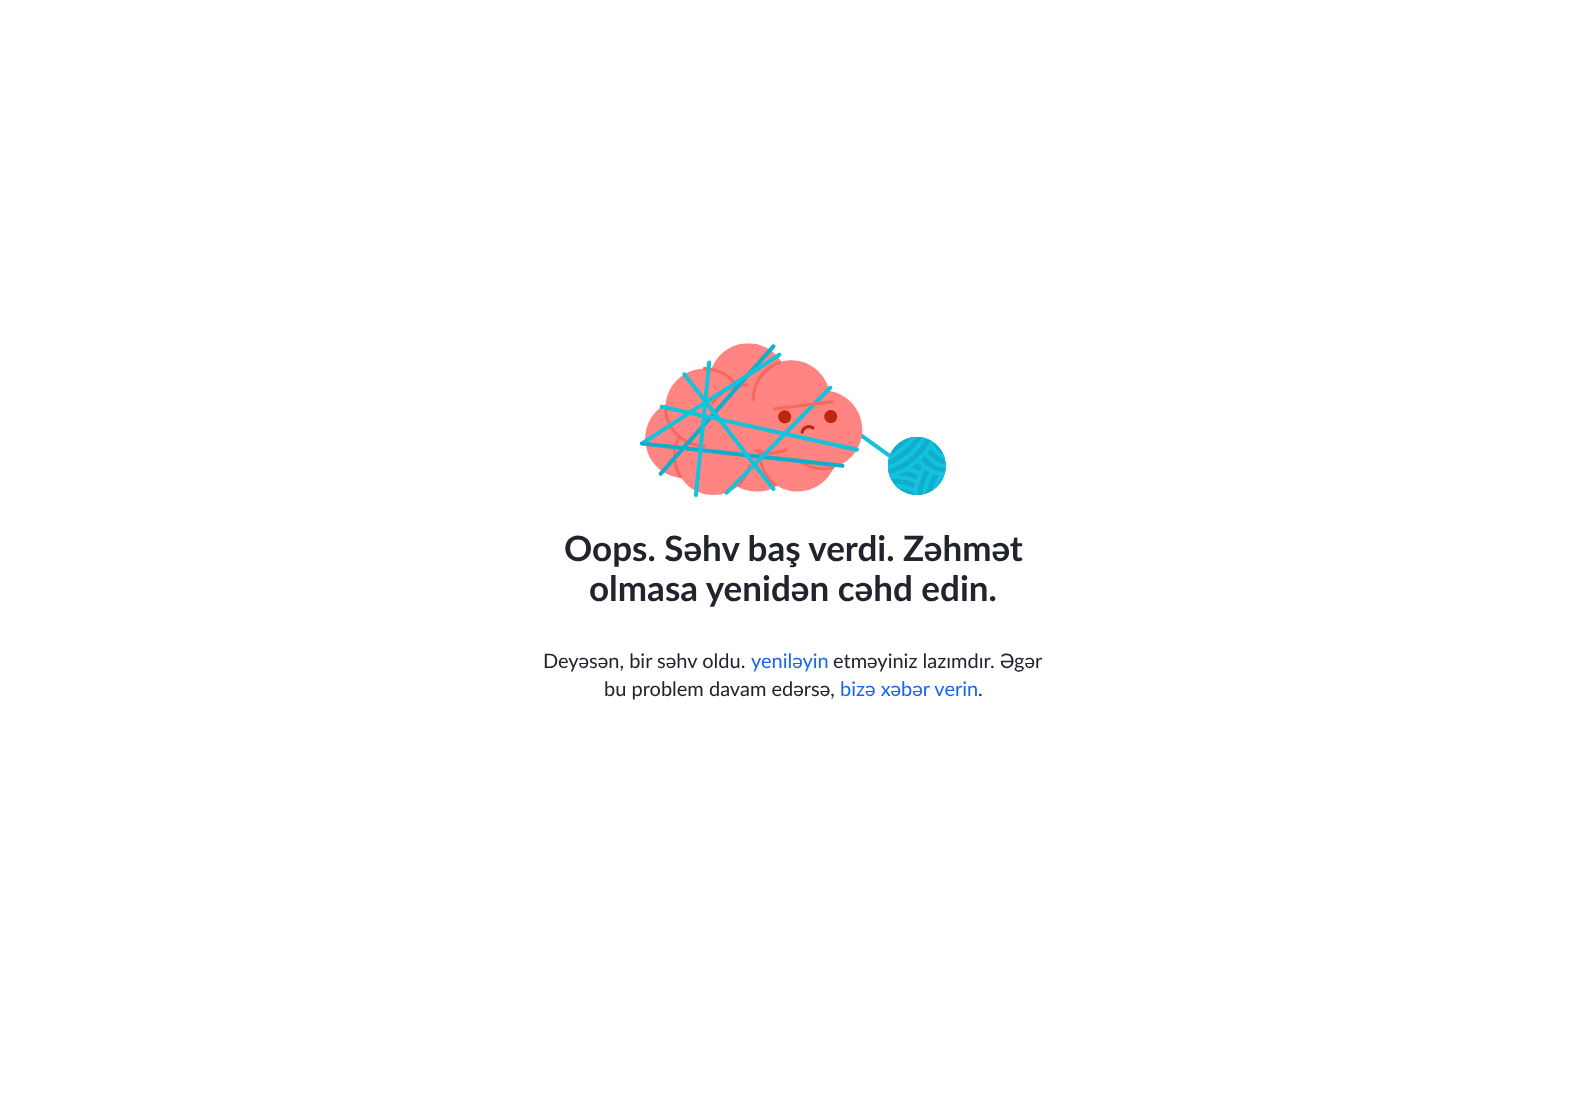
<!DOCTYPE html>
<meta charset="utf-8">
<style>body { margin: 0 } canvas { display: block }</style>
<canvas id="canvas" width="1586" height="1118"></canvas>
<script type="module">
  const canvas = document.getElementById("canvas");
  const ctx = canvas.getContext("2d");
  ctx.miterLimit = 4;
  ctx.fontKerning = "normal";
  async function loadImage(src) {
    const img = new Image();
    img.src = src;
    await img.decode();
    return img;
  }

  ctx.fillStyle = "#ffffff";
  ctx.fillRect(0, 0, 1586, 1118);
  ctx.drawImage(await loadImage("img1.png"), 640, 343, 306, 154);
  ctx.font = "bold 35px Lato";
  ctx.fillStyle = "#21242c";
  ctx.fillText("Oops. Səhv baş verdi. Zəhmət", 564, 561);
  ctx.fillText("olmasa yenidən cəhd edin.", 589, 601);
  ctx.font = "20px Lato";
  ctx.fillText("Deyəsən, bir səhv oldu.", 543, 668);
  ctx.fillStyle = "#1865f2";
  ctx.fillText("yeniləyin", 751, 668);
  ctx.fillStyle = "#21242c";
  ctx.fillText("etməyiniz lazımdır. Əgər", 833, 668);
  ctx.fillText("bu problem davam edərsə,", 604, 696);
  ctx.fillStyle = "#1865f2";
  ctx.fillText("bizə xəbər verin", 840, 696);
  ctx.fillStyle = "#21242c";
  ctx.fillText(".", 978, 696);
</script>
